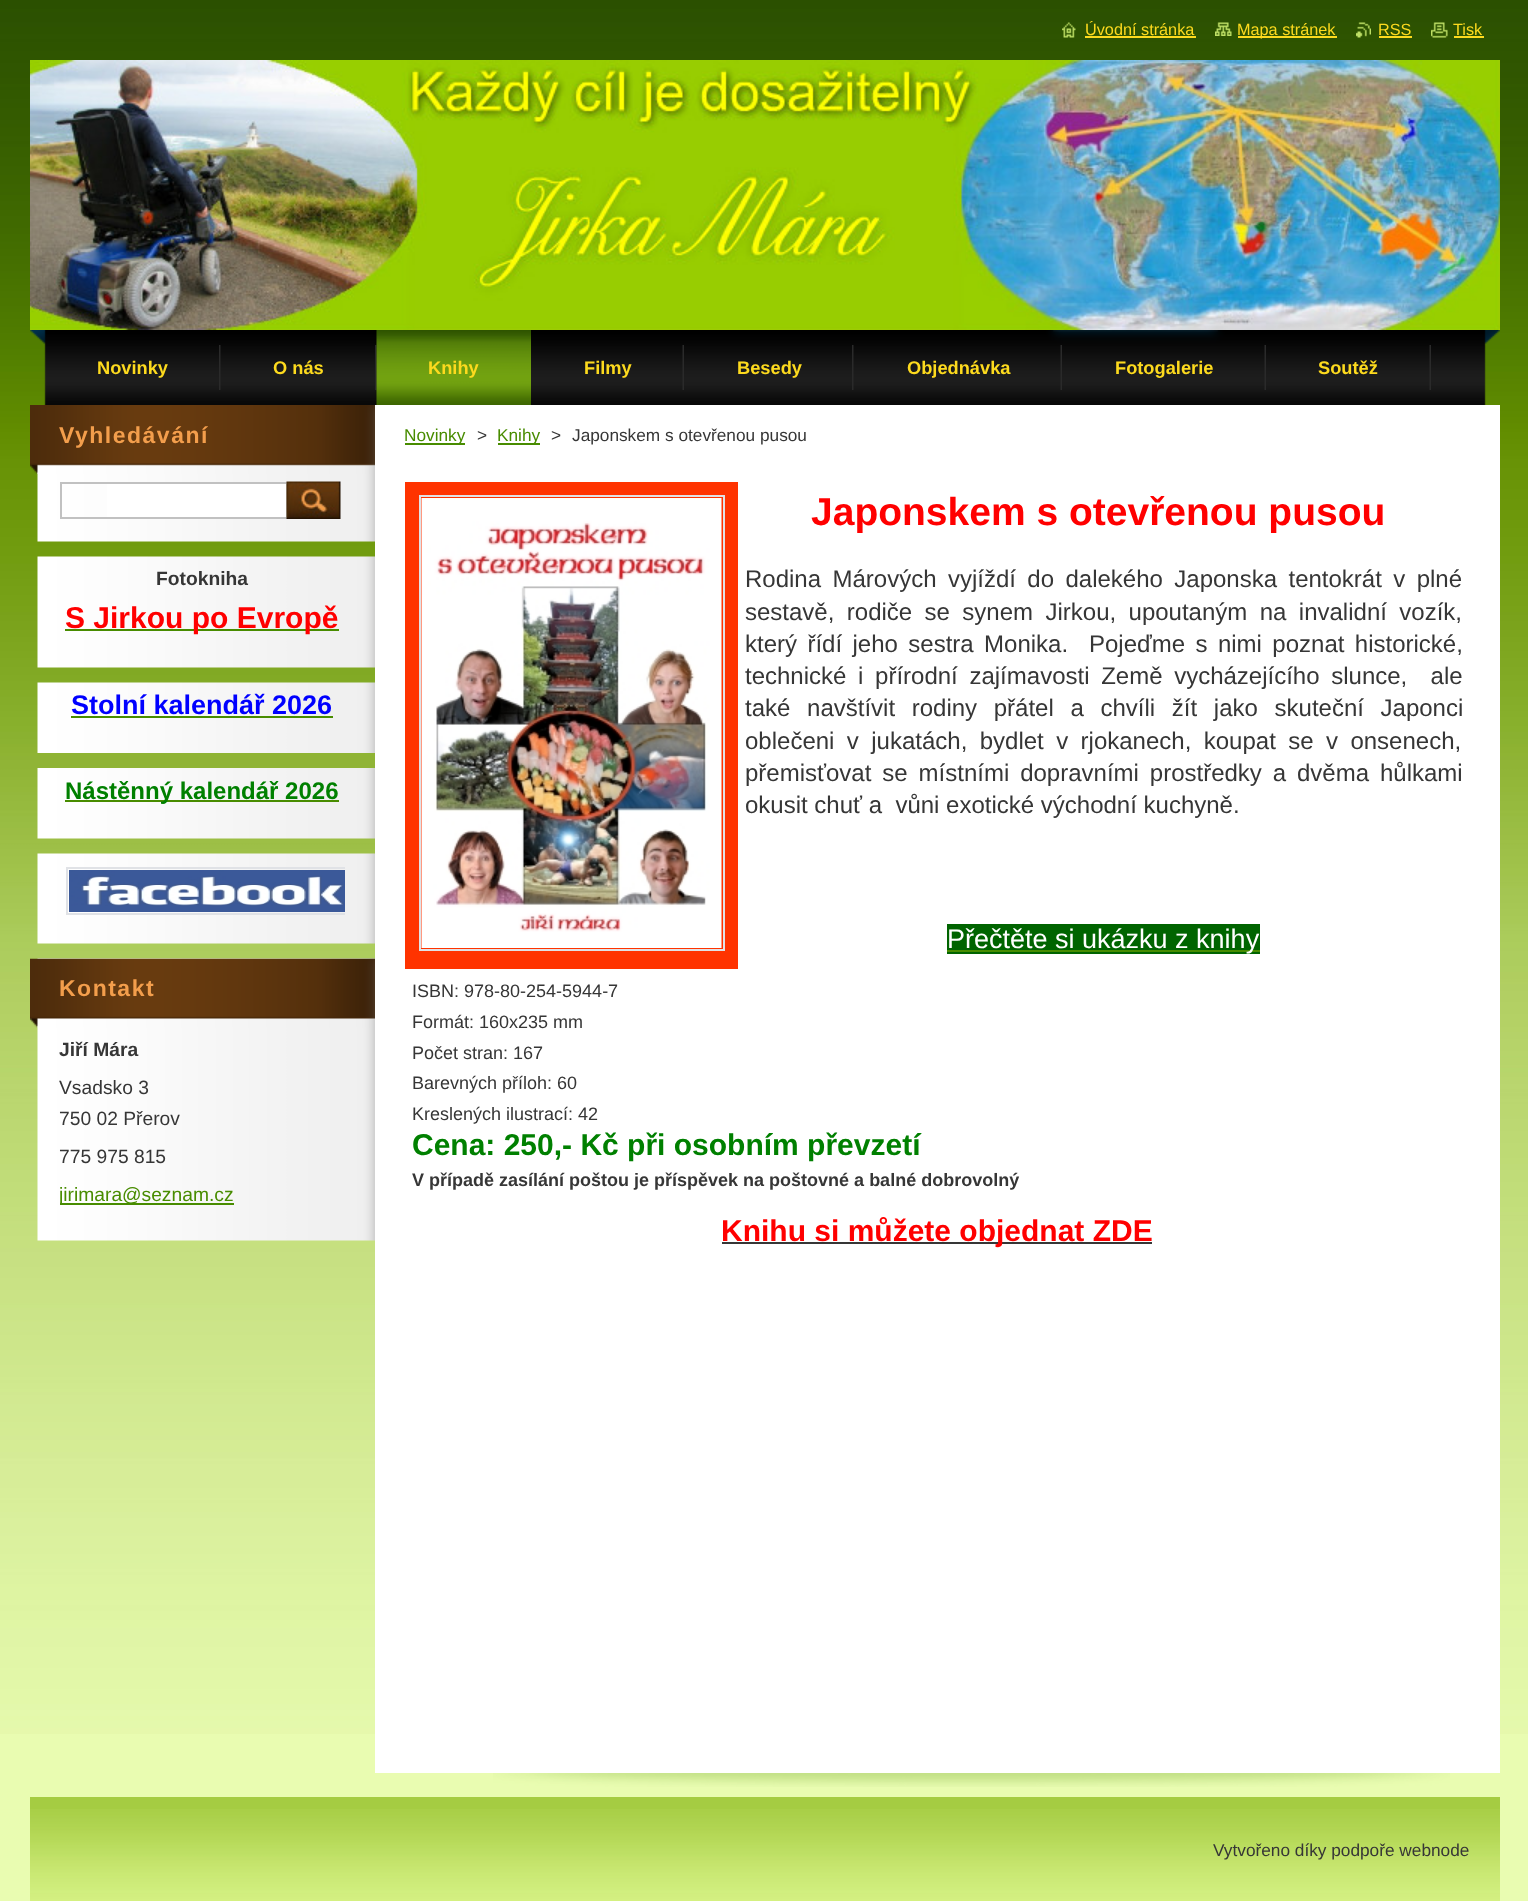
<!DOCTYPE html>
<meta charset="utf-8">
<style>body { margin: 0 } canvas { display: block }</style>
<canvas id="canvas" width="1528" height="1901"></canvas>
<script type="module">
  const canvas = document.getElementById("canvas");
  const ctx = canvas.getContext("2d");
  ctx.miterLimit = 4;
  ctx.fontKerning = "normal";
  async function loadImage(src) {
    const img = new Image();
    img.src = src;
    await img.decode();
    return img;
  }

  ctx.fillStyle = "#e9fcb1";
  ctx.fillRect(0, 0, 1528, 1901);
  ctx.drawImage(await loadImage("img1.png"), 0, 0, 1528, 1734);
  ctx.drawImage(await loadImage("img2.png"), 1062, 22, 14, 16);
  ctx.font = "16.25px Liberation Sans";
  ctx.fillStyle = "#fdda1e";
  ctx.fillText("Úvodní stránka", 1085, 35);
  ctx.fillRect(1085, 36, 111, 2);
  ctx.drawImage(await loadImage("img3.png"), 1215, 22, 17, 14);
  ctx.fillRect(1238, 36, 99, 2);
  ctx.fillText("Mapa stránek", 1237, 35);
  ctx.drawImage(await loadImage("img4.png"), 1356, 22, 15, 16);
  ctx.fillText("RSS", 1378, 35);
  ctx.fillRect(1379, 36, 33, 2);
  ctx.drawImage(await loadImage("img5.png"), 1431, 22, 17, 16);
  ctx.fillText("Tisk", 1453, 35);
  ctx.fillRect(1454, 36, 30, 2);
  ctx.drawImage(await loadImage("img6.png"), 30, 60, 1470, 270);
  ctx.drawImage(await loadImage("img7.png"), 30, 330, 1470, 75);
  ctx.drawImage(await loadImage("img8.png"), 219, 345, 2, 45);
  ctx.font = "bold 18.25px Liberation Sans";
  ctx.fillText("Novinky", 97, 374);
  ctx.drawImage(await loadImage("img8.png"), 375, 345, 2, 45);
  ctx.fillText("O nás", 273, 374);
  ctx.drawImage(await loadImage("img9.png"), 376, 330, 155, 75);
  ctx.fillText("Knihy", 428, 374);
  ctx.drawImage(await loadImage("img10.png"), 682, 345, 2, 45);
  ctx.fillText("Filmy", 584, 374);
  ctx.drawImage(await loadImage("img8.png"), 852, 345, 2, 45);
  ctx.fillText("Besedy", 737, 374);
  ctx.drawImage(await loadImage("img10.png"), 1060, 345, 2, 45);
  ctx.fillText("Objednávka", 907, 374);
  ctx.drawImage(await loadImage("img10.png"), 1264, 345, 2, 45);
  ctx.fillText("Fotogalerie", 1115, 374);
  ctx.drawImage(await loadImage("img10.png"), 1429, 345, 2, 45);
  ctx.fillText("Soutěž", 1318, 374);
  ctx.drawImage(await loadImage("img11.png"), 37, 465, 338, 77);
  ctx.drawImage(await loadImage("img12.png"), 30, 405, 345, 69);
  ctx.letterSpacing = "1.5px";
  ctx.font = "bold 23px Liberation Sans";
  ctx.fillStyle = "#f39e4c";
  ctx.fillText("Vyhledávání", 59, 443);
  ctx.fillStyle = "#ffffff";
  ctx.fillRect(107, 484, 179, 33);
  ctx.strokeStyle = "#c1c1c1";
  ctx.lineWidth = 2;
  ctx.strokeRect(61, 483, 226, 35);
  ctx.drawImage(await loadImage("img13.png"), 286, 481, 55, 38);
  ctx.drawImage(await loadImage("img14.png"), 37, 556, 338, 112);
  ctx.letterSpacing = "0px";
  ctx.font = "bold 19.25px Liberation Sans";
  ctx.fillStyle = "#363636";
  ctx.fillText("Fotokniha", 156, 585);
  ctx.fillStyle = "#488c00";
  ctx.fillRect(65, 629, 274, 2);
  ctx.font = "bold 30px Liberation Sans";
  ctx.fillStyle = "#ff0000";
  ctx.fillText("S Jirkou po Evropě", 65, 628);
  ctx.drawImage(await loadImage("img15.png"), 37, 682, 338, 71);
  ctx.font = "bold 27px Liberation Sans";
  ctx.fillStyle = "#0000ff";
  ctx.fillText("Stolní kalendář 2026", 71, 714);
  ctx.fillStyle = "#488c00";
  ctx.fillRect(71, 716, 262, 2);
  ctx.drawImage(await loadImage("img16.png"), 37, 768, 338, 71);
  ctx.fillRect(65, 800, 274, 2);
  ctx.font = "bold 24px Liberation Sans";
  ctx.fillStyle = "#008000";
  ctx.fillText("Nástěnný kalendář 2026", 65, 799);
  ctx.drawImage(await loadImage("img17.png"), 37, 853, 338, 91);
  ctx.save();
  ctx.beginPath();
  ctx.rect(60, 854, 285, 90);
  ctx.clip();
  ctx.strokeStyle = "#e0e2e6";
  ctx.strokeRect(67, 868, 289, 46);
  ctx.restore();
  ctx.drawImage(await loadImage("img18.png"), 69, 870, 276, 42);
  ctx.drawImage(await loadImage("img19.png"), 37, 958, 338, 283);
  ctx.drawImage(await loadImage("img20.png"), 30, 958, 345, 70);
  ctx.letterSpacing = "1.5px";
  ctx.font = "bold 23px Liberation Sans";
  ctx.fillStyle = "#f39e4c";
  ctx.fillText("Kontakt", 59, 996);
  ctx.letterSpacing = "0px";
  ctx.font = "bold 19.25px Liberation Sans";
  ctx.fillStyle = "#363636";
  ctx.fillText("Jiří Mára", 59, 1056);
  ctx.font = "19.25px Liberation Sans";
  ctx.fillText("Vsadsko 3", 59, 1094);
  ctx.fillText("750 02 Přerov", 59, 1125);
  ctx.fillText("775 975 815", 59, 1163);
  ctx.fillStyle = "#488c00";
  ctx.fillRect(60, 1203, 62, 2);
  ctx.save();
  ctx.beginPath();
  ctx.rect(60, 1028, 285, 213);
  ctx.clip();
  ctx.fillText("jirimara", 59, 1201);
  ctx.restore();
  ctx.fillRect(122, 1203, 112, 2);
  ctx.fillText("@seznam.cz", 122, 1201);
  ctx.drawImage(await loadImage("img21.png"), 493, 1773, 957, 14);
  ctx.fillStyle = "#ffffff";
  ctx.fillRect(375, 405, 1125, 1368);
  ctx.fillStyle = "#488c00";
  ctx.fillRect(405, 443, 60, 2);
  ctx.font = "17.25px Liberation Sans";
  ctx.fillText("Novinky", 404, 441);
  ctx.fillStyle = "#363636";
  ctx.fillText(">", 477, 441);
  ctx.fillStyle = "#488c00";
  ctx.fillRect(498, 443, 42, 2);
  ctx.fillText("Knihy", 497, 441);
  ctx.fillStyle = "#363636";
  ctx.fillText(">", 551, 441);
  ctx.fillText("Japonskem s otevřenou pusou", 572, 441);
  ctx.fillStyle = "#ff3300";
  ctx.fillRect(405, 482, 333, 487);
  ctx.strokeStyle = "#e0e2e6";
  ctx.strokeRect(420, 496, 304, 454);
  ctx.drawImage(await loadImage("img22.png"), 421, 498, 301, 450);
  ctx.font = "bold 39px Liberation Sans";
  ctx.fillStyle = "#ff0000";
  ctx.fillText("Japonskem s otevřenou pusou", 811, 525);
  ctx.wordSpacing = "4.75px";
  ctx.font = "24px Liberation Sans";
  ctx.fillStyle = "#363636";
  ctx.fillText("Rodina Márových vyjíždí do dalekého Japonska tentokrát v plné", 745, 587);
  ctx.wordSpacing = "5.75px";
  ctx.fillText("sestavě, rodiče se synem Jirkou, upoutaným na invalidní vozík,", 745, 620);
  ctx.wordSpacing = "3.75px";
  ctx.fillText("který řídí jeho sestra Monika.  Pojeďme s nimi poznat historické,", 745, 652);
  ctx.wordSpacing = "5px";
  ctx.fillText("technické i přírodní zajímavosti Země vycházejícího slunce,  ale", 745, 684);
  ctx.wordSpacing = "10px";
  ctx.fillText("také navštívit rodiny přátel a chvíli žít jako skuteční Japonci", 745, 716);
  ctx.wordSpacing = "5.75px";
  ctx.fillText("oblečeni v jukatách, bydlet v rjokanech, koupat se v onsenech,", 745, 749);
  ctx.wordSpacing = "4.25px";
  ctx.fillText("přemisťovat se místními dopravními prostředky a dvěma hůlkami", 745, 781);
  ctx.wordSpacing = "0px";
  ctx.fillText("okusit chuť a  vůni exotické východní kuchyně.", 745, 813);
  ctx.fillStyle = "#006400";
  ctx.fillRect(947, 924, 313, 30);
  ctx.fillStyle = "#488c00";
  ctx.fillRect(947, 950, 313, 2);
  ctx.font = "27px Liberation Sans";
  ctx.fillStyle = "#ffffff";
  ctx.fillText("Přečtěte si ukázku z knihy", 947, 948);
  ctx.font = "18px Liberation Sans";
  ctx.fillStyle = "#363636";
  ctx.fillText("ISBN: 978-80-254-5944-7", 412, 997);
  ctx.fillText("Formát: 160x235 mm", 412, 1028);
  ctx.fillText("Počet stran: 167", 412, 1059);
  ctx.fillText("Barevných příloh: 60", 412, 1089);
  ctx.fillText("Kreslených ilustrací: 42", 412, 1120);
  ctx.font = "bold 30px Liberation Sans";
  ctx.fillStyle = "#008000";
  ctx.fillText("Cena: 250,- Kč při osobním převzetí", 412, 1155);
  ctx.font = "bold 18px Liberation Sans";
  ctx.fillStyle = "#363636";
  ctx.fillText("V případě zasílání poštou je příspěvek na poštovné a balné dobrovolný", 412, 1186);
  ctx.fillRect(722, 1242, 430, 2);
  ctx.font = "bold 30px Liberation Sans";
  ctx.fillStyle = "#ff0000";
  ctx.fillText("Knihu si můžete objednat ZDE", 721, 1241);
  ctx.fillStyle = "#a5cc42";
  ctx.fillRect(30, 1797, 1470, 12);
  ctx.drawImage(await loadImage("img23.png"), 30, 1809, 1470, 92);
  ctx.font = "17.25px Liberation Sans";
  ctx.fillStyle = "#363636";
  ctx.fillText("Vytvořeno díky podpoře webnode", 1213, 1856);
</script>
